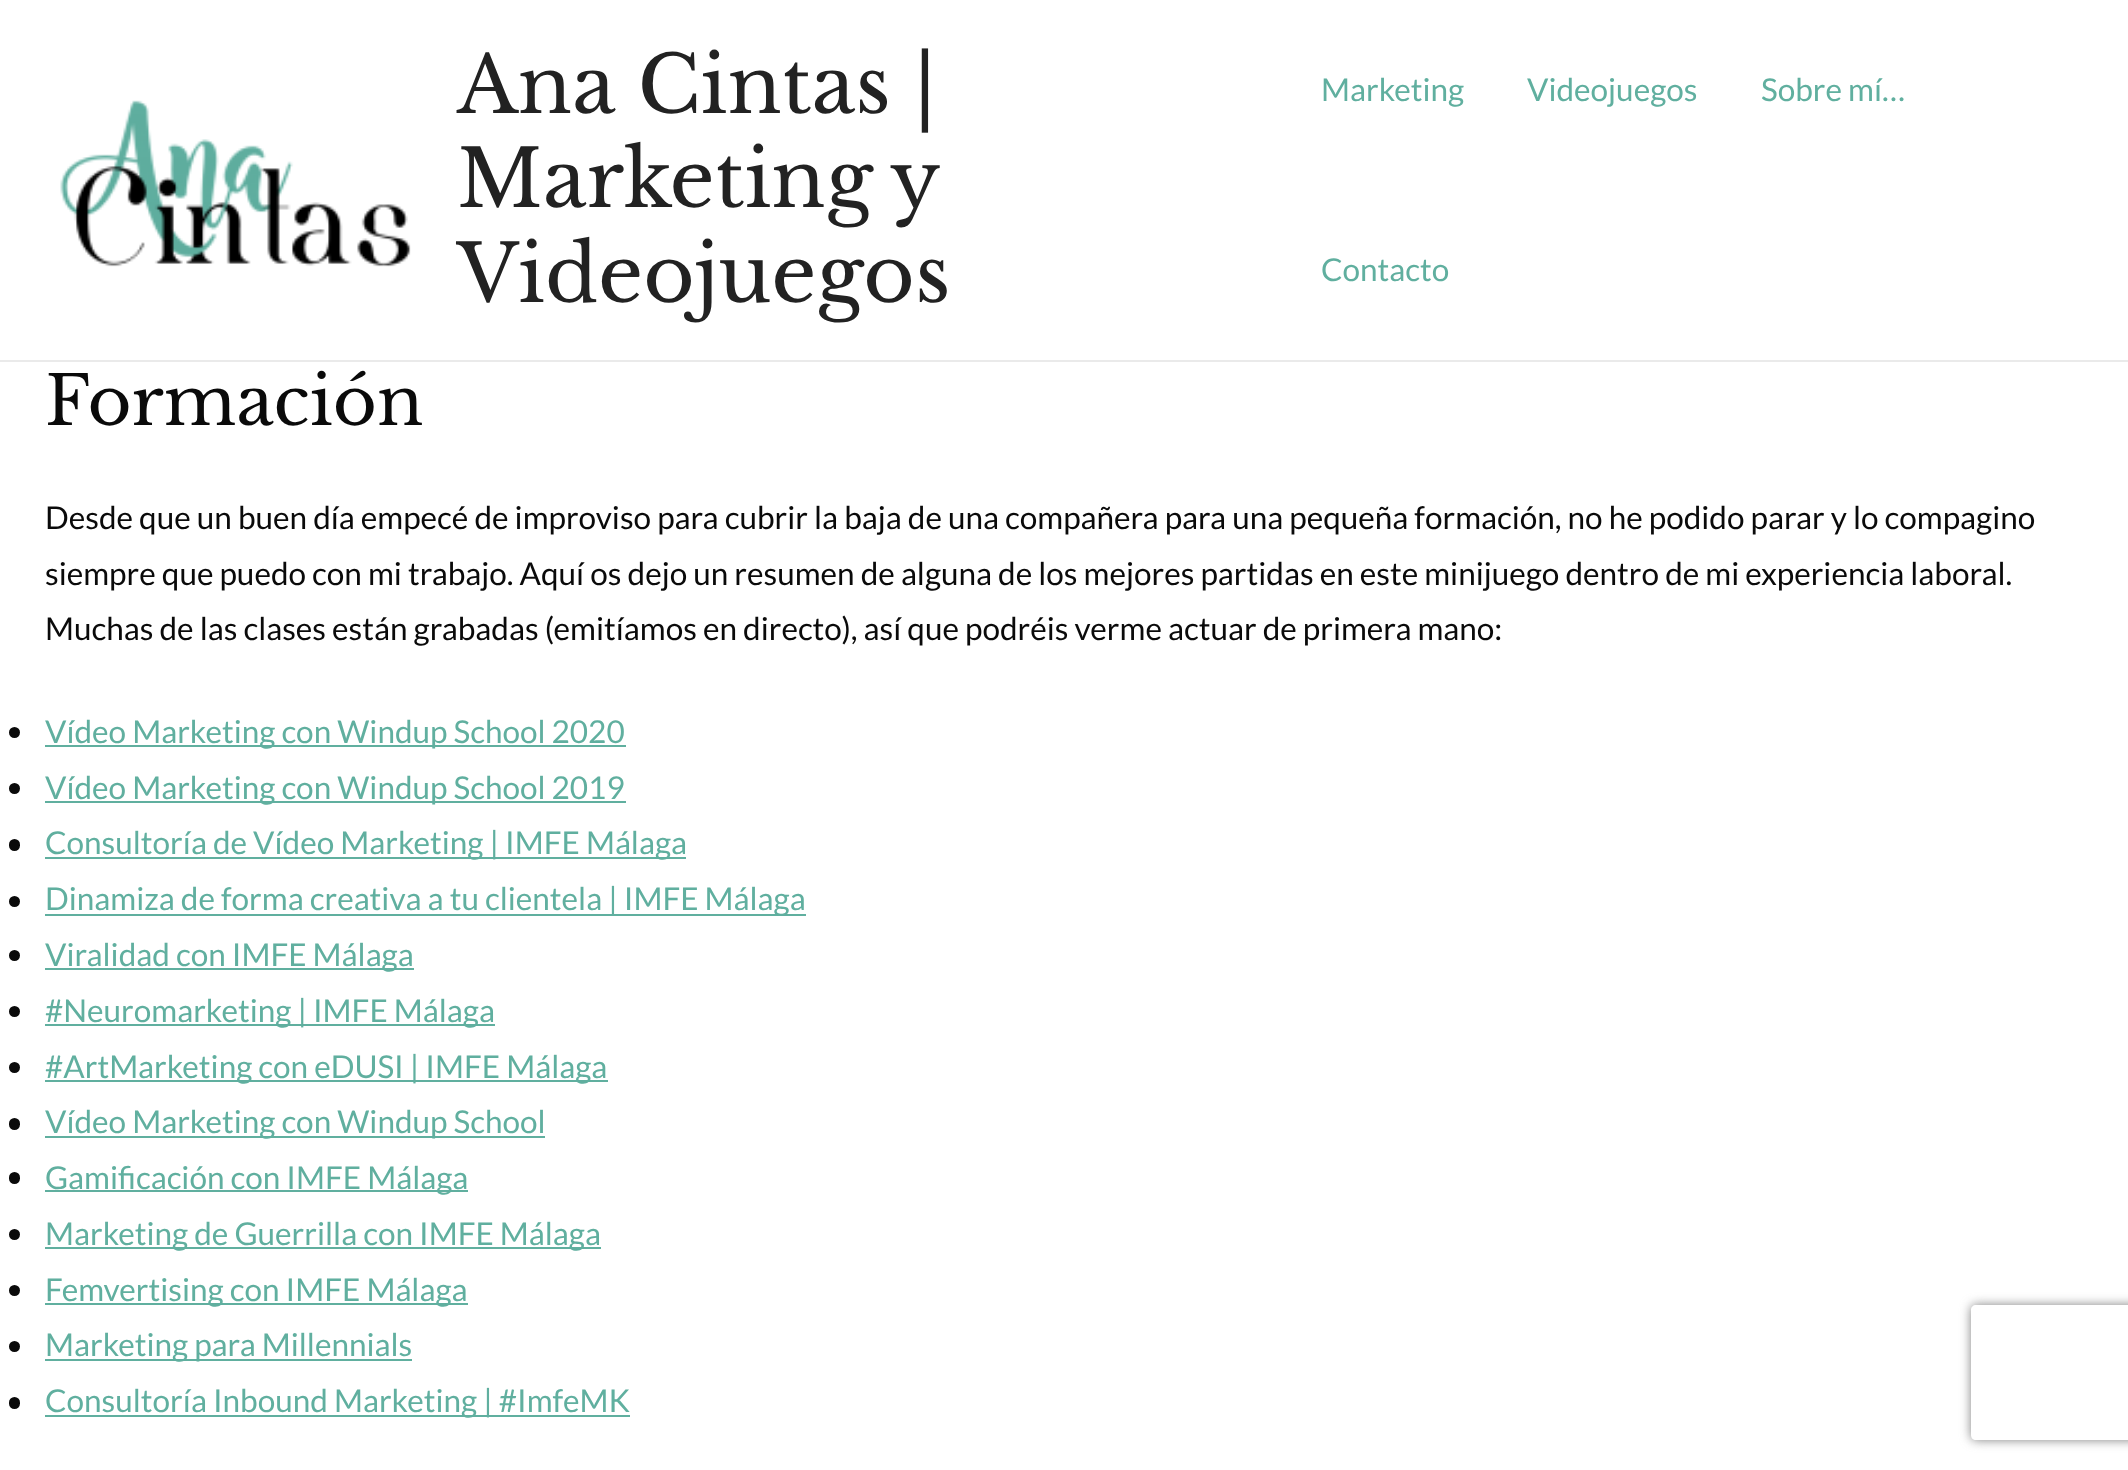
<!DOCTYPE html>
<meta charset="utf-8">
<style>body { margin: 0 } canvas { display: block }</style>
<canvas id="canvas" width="2128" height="1470"></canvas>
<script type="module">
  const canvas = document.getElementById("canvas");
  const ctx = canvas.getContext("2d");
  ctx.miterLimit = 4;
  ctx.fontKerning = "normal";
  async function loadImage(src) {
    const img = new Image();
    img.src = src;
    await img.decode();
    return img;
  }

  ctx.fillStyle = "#ffffff";
  ctx.fillRect(0, 0, 2128, 1470);
  ctx.fillStyle = "#eaeaea";
  ctx.fillRect(0, 360, 2128, 2);
  ctx.drawImage(await loadImage("img1.png"), 60, 100, 351, 167);
  ctx.font = "78.75px Libre Baskerville";
  ctx.fillStyle = "#222222";
  ctx.fillText("Ana Cintas |", 457, 113);
  ctx.wordSpacing = "-2px";
  ctx.fillText("Marketing y", 457, 207);
  ctx.wordSpacing = "0px";
  ctx.fillText("Videojuegos", 457, 302);
  ctx.font = "31.5px Lato";
  ctx.fillStyle = "#60af9f";
  ctx.fillText("Marketing", 1321, 101);
  ctx.fillText("Videojuegos", 1527, 101);
  ctx.fillText("Sobre mí…", 1761, 101);
  ctx.fillText("Contacto", 1321, 281);
  ctx.font = "67.5px Libre Baskerville";
  ctx.fillStyle = "#0a0a0a";
  ctx.fillText("Formación", 45, 425);
  ctx.font = "31.5px Lato";
  ctx.fillText("Desde que un buen día empecé de improviso para cubrir la baja de una compañera para una pequeña formación, no he podido parar y lo compagino", 45, 529);
  ctx.fillText("siempre que puedo con mi trabajo. Aquí os dejo un resumen de alguna de los mejores partidas en este minijuego dentro de mi experiencia laboral.", 45, 585);
  ctx.fillText("Muchas de las clases están grabadas (emitíamos en directo), así que podréis verme actuar de primera mano:", 45, 640);
  ctx.beginPath();
  ctx.arc(14.5, 732.5, 5.5, 0, Math.PI * 2);
  ctx.fill();
  ctx.fillStyle = "#60af9f";
  ctx.fillRect(45, 745, 581, 2);
  ctx.fillText("Vídeo Marketing con Windup School 2020", 45, 743);
  ctx.fillStyle = "#0a0a0a";
  ctx.beginPath();
  ctx.arc(14.5, 788.5, 5.5, 0, Math.PI * 2);
  ctx.fill();
  ctx.fillStyle = "#60af9f";
  ctx.fillRect(45, 801, 581, 2);
  ctx.fillText("Vídeo Marketing con Windup School 2019", 45, 799);
  ctx.fillStyle = "#0a0a0a";
  ctx.beginPath();
  ctx.roundRect(9, 839, 11, 12, 5.5);
  ctx.fill();
  ctx.fillStyle = "#60af9f";
  ctx.fillRect(45, 857, 641, 2);
  ctx.fillText("Consultoría de Vídeo Marketing | IMFE Málaga", 45, 854);
  ctx.fillStyle = "#0a0a0a";
  ctx.beginPath();
  ctx.arc(14.5, 901.5, 5.5, 0, Math.PI * 2);
  ctx.fill();
  ctx.fillStyle = "#60af9f";
  ctx.fillRect(45, 914, 761, 2);
  ctx.fillText("Dinamiza de forma creativa a tu clientela | IMFE Málaga", 45, 910);
  ctx.fillStyle = "#0a0a0a";
  ctx.beginPath();
  ctx.arc(14.5, 955.5, 5.5, 0, Math.PI * 2);
  ctx.fill();
  ctx.fillStyle = "#60af9f";
  ctx.fillRect(45, 968, 369, 2);
  ctx.fillText("Viralidad con IMFE Málaga", 45, 966);
  ctx.fillStyle = "#0a0a0a";
  ctx.beginPath();
  ctx.arc(14.5, 1011.5, 5.5, 0, Math.PI * 2);
  ctx.fill();
  ctx.fillStyle = "#60af9f";
  ctx.fillRect(45, 1024, 450, 2);
  ctx.fillText("#Neuromarketing | IMFE Málaga", 45, 1022);
  ctx.fillStyle = "#0a0a0a";
  ctx.beginPath();
  ctx.arc(14.5, 1067.5, 5.5, 0, Math.PI * 2);
  ctx.fill();
  ctx.fillStyle = "#60af9f";
  ctx.fillRect(45, 1080, 563, 2);
  ctx.fillText("#ArtMarketing con eDUSI | IMFE Málaga", 45, 1078);
  ctx.fillStyle = "#0a0a0a";
  ctx.beginPath();
  ctx.roundRect(9, 1118, 11, 12, 5.5);
  ctx.fill();
  ctx.fillStyle = "#60af9f";
  ctx.fillRect(45, 1136, 500, 2);
  ctx.fillText("Vídeo Marketing con Windup School", 45, 1133);
  ctx.fillStyle = "#0a0a0a";
  ctx.beginPath();
  ctx.roundRect(9, 1172, 11, 12, 5.5);
  ctx.fill();
  ctx.fillStyle = "#60af9f";
  ctx.fillRect(45, 1190, 423, 2);
  ctx.fillText("Gamificación con IMFE Málaga", 45, 1189);
  ctx.fillStyle = "#0a0a0a";
  ctx.beginPath();
  ctx.arc(14.5, 1234.5, 5.5, 0, Math.PI * 2);
  ctx.fill();
  ctx.fillStyle = "#60af9f";
  ctx.fillRect(45, 1247, 556, 2);
  ctx.fillText("Marketing de Guerrilla con IMFE Málaga", 45, 1245);
  ctx.fillStyle = "#0a0a0a";
  ctx.beginPath();
  ctx.arc(14.5, 1290.5, 5.5, 0, Math.PI * 2);
  ctx.fill();
  ctx.fillStyle = "#60af9f";
  ctx.fillRect(45, 1303, 423, 2);
  ctx.fillText("Femvertising con IMFE Málaga", 45, 1301);
  ctx.fillStyle = "#0a0a0a";
  ctx.beginPath();
  ctx.arc(14.5, 1346.5, 5.5, 0, Math.PI * 2);
  ctx.fill();
  ctx.fillStyle = "#60af9f";
  ctx.fillRect(45, 1359, 367, 2);
  ctx.fillText("Marketing para Millennials", 45, 1356);
  ctx.fillStyle = "#0a0a0a";
  ctx.beginPath();
  ctx.roundRect(9, 1397, 11, 12, 5.5);
  ctx.fill();
  ctx.fillStyle = "#60af9f";
  ctx.fillRect(45, 1415, 585, 2);
  ctx.fillText("Consultoría Inbound Marketing | #ImfeMK", 45, 1412);
  ctx.save();
  ctx.beginPath();
  ctx.moveTo(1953, 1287);
  ctx.lineTo(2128, 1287);
  ctx.lineTo(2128, 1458);
  ctx.lineTo(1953, 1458);
  ctx.closePath();
  ctx.moveTo(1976, 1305);
  ctx.lineTo(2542, 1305);
  ctx.bezierCurveTo(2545, 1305, 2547, 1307, 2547, 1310);
  ctx.lineTo(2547, 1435);
  ctx.bezierCurveTo(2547, 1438, 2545, 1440, 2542, 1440);
  ctx.lineTo(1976, 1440);
  ctx.bezierCurveTo(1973, 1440, 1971, 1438, 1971, 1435);
  ctx.lineTo(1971, 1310);
  ctx.bezierCurveTo(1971, 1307, 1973, 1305, 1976, 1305);
  ctx.closePath();
  ctx.clip("evenodd");
  ctx.fillStyle = "#808080";
  ctx.filter = "blur(5.5px)";
  ctx.beginPath();
  ctx.roundRect(1971, 1305, 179, 135, 5);
  ctx.fill();
  ctx.filter = "none";
  ctx.restore();
</script>
